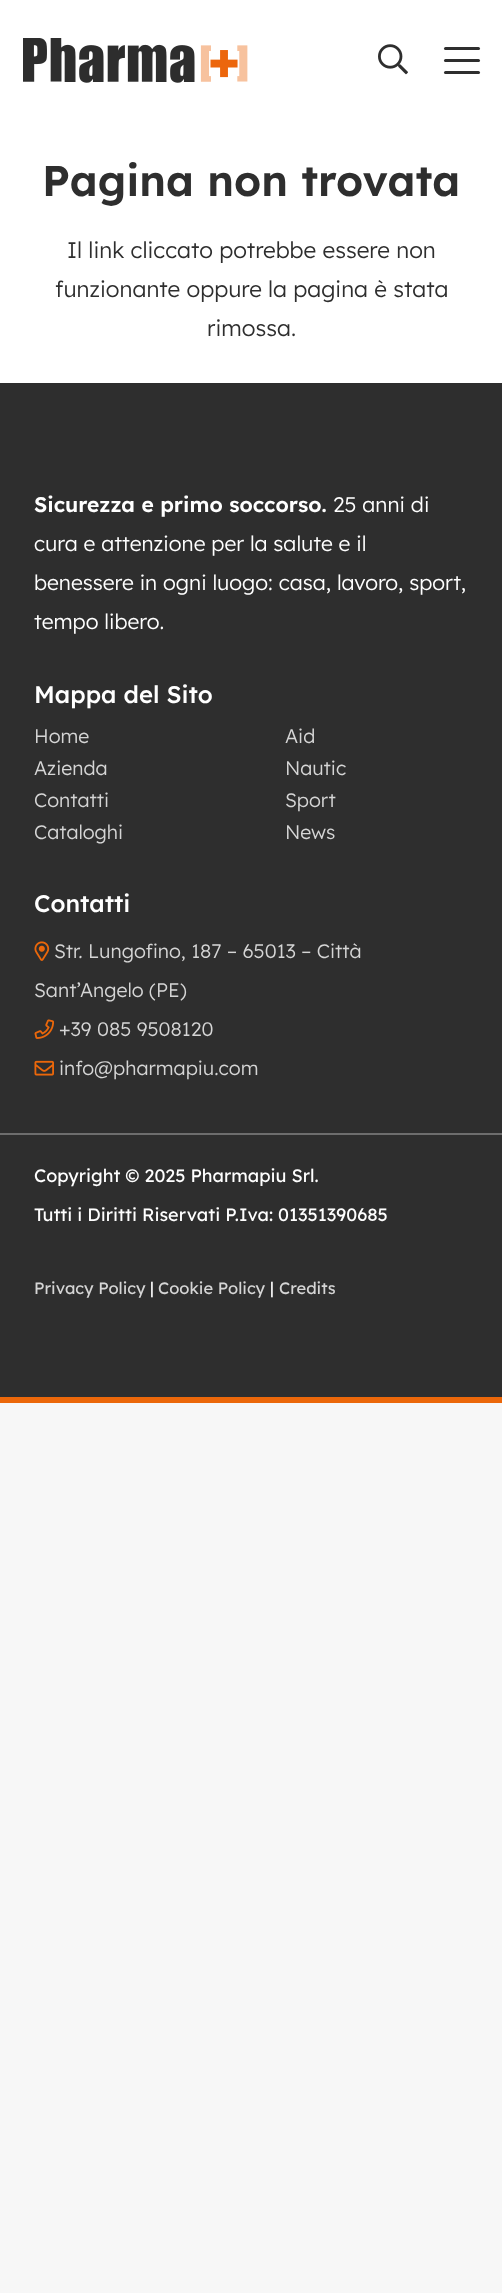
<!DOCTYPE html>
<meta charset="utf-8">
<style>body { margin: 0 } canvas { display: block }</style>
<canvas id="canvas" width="502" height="2293"></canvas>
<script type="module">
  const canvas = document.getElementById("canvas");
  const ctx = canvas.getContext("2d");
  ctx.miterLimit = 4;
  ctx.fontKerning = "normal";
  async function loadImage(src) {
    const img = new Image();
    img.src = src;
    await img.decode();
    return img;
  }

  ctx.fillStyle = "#f7f7f7";
  ctx.fillRect(0, 0, 502, 2293);
  ctx.fillStyle = "#ffffff";
  ctx.fillRect(0, 0, 502, 383);
  ctx.drawImage(await loadImage("img1.png"), 23, 38, 225, 45);
  ctx.drawImage(await loadImage("img2.png"), 378, 44, 30, 31);
  ctx.fillStyle = "#2e2e2e";
  ctx.beginPath();
  ctx.roundRect(444, 59, 36, 3, 1.5);
  ctx.fill();
  ctx.beginPath();
  ctx.roundRect(444, 47, 36, 3, 1.5);
  ctx.fill();
  ctx.beginPath();
  ctx.roundRect(444, 71, 36, 3, 1.5);
  ctx.fill();
  ctx.font = "600 43px Lexend";
  ctx.fillText("Pagina non trovata", 42, 196);
  ctx.font = "300 22.5px Lexend";
  ctx.fillText("Il link cliccato potrebbe essere non", 67, 258);
  ctx.fillText("funzionante oppure la pagina è stata", 55, 297);
  ctx.fillText("rimossa.", 207, 336);
  ctx.fillRect(0, 383, 502, 1014);
  ctx.fillStyle = "#eb670a";
  ctx.fillRect(0, 1397, 502, 6);
  ctx.font = "600 21px Lexend";
  ctx.fillStyle = "#ffffff";
  ctx.fillText("Sicurezza e primo soccorso.", 34, 512);
  ctx.font = "300 21px Lexend";
  ctx.fillText("25 anni di", 333, 512);
  ctx.fillText("cura e attenzione per la salute e il", 34, 551);
  ctx.fillText("benessere in ogni luogo: casa, lavoro, sport,", 34, 590);
  ctx.fillText("tempo libero.", 34, 629);
  ctx.font = "500 24px Lexend";
  ctx.fillText("Mappa del Sito", 34, 703);
  ctx.font = "300 19.5px Lexend";
  ctx.fillStyle = "#d5d5d5";
  ctx.fillText("Home", 34, 743);
  ctx.fillText("Azienda", 34, 775);
  ctx.fillText("Contatti", 34, 807);
  ctx.fillText("Cataloghi", 34, 839);
  ctx.fillText("Aid", 285, 743);
  ctx.fillText("Nautic", 285, 775);
  ctx.fillText("Sport", 285, 807);
  ctx.fillText("News", 285, 839);
  ctx.font = "500 24px Lexend";
  ctx.fillStyle = "#ffffff";
  ctx.fillText("Contatti", 34, 912);
  ctx.drawImage(await loadImage("img3.png"), 34, 941, 16, 20);
  ctx.font = "300 19.5px Lexend";
  ctx.fillStyle = "#d5d5d5";
  ctx.fillText("Str. Lungofino, 187 – 65013 – Città", 54, 958);
  ctx.fillText("Sant’Angelo (PE)", 34, 997);
  ctx.drawImage(await loadImage("img4.png"), 34, 1019, 20, 20);
  ctx.fillText("+39 085 9508120", 59, 1036);
  ctx.drawImage(await loadImage("img5.png"), 34, 1060, 20, 16);
  ctx.fillText("info@pharmapiu.com", 59, 1075);
  ctx.fillStyle = "#6d6d6d";
  ctx.fillRect(0, 1133, 502, 2);
  ctx.font = "18px Lexend";
  ctx.fillStyle = "#ffffff";
  ctx.fillText("Copyright © 2025 Pharmapiu Srl.", 34, 1182);
  ctx.fillText("Tutti i Diritti Riservati P.Iva: 01351390685", 34, 1221);
  ctx.font = "16.5px Lexend";
  ctx.fillStyle = "#d5d5d5";
  ctx.fillText("Privacy Policy", 34, 1294);
  ctx.fillStyle = "#ffffff";
  ctx.fillText("|", 150, 1294);
  ctx.fillStyle = "#d5d5d5";
  ctx.fillText("Cookie Policy", 158, 1294);
  ctx.fillStyle = "#ffffff";
  ctx.fillText("|", 270, 1294);
  ctx.fillStyle = "#d5d5d5";
  ctx.fillText("Credits", 279, 1294);
</script>
